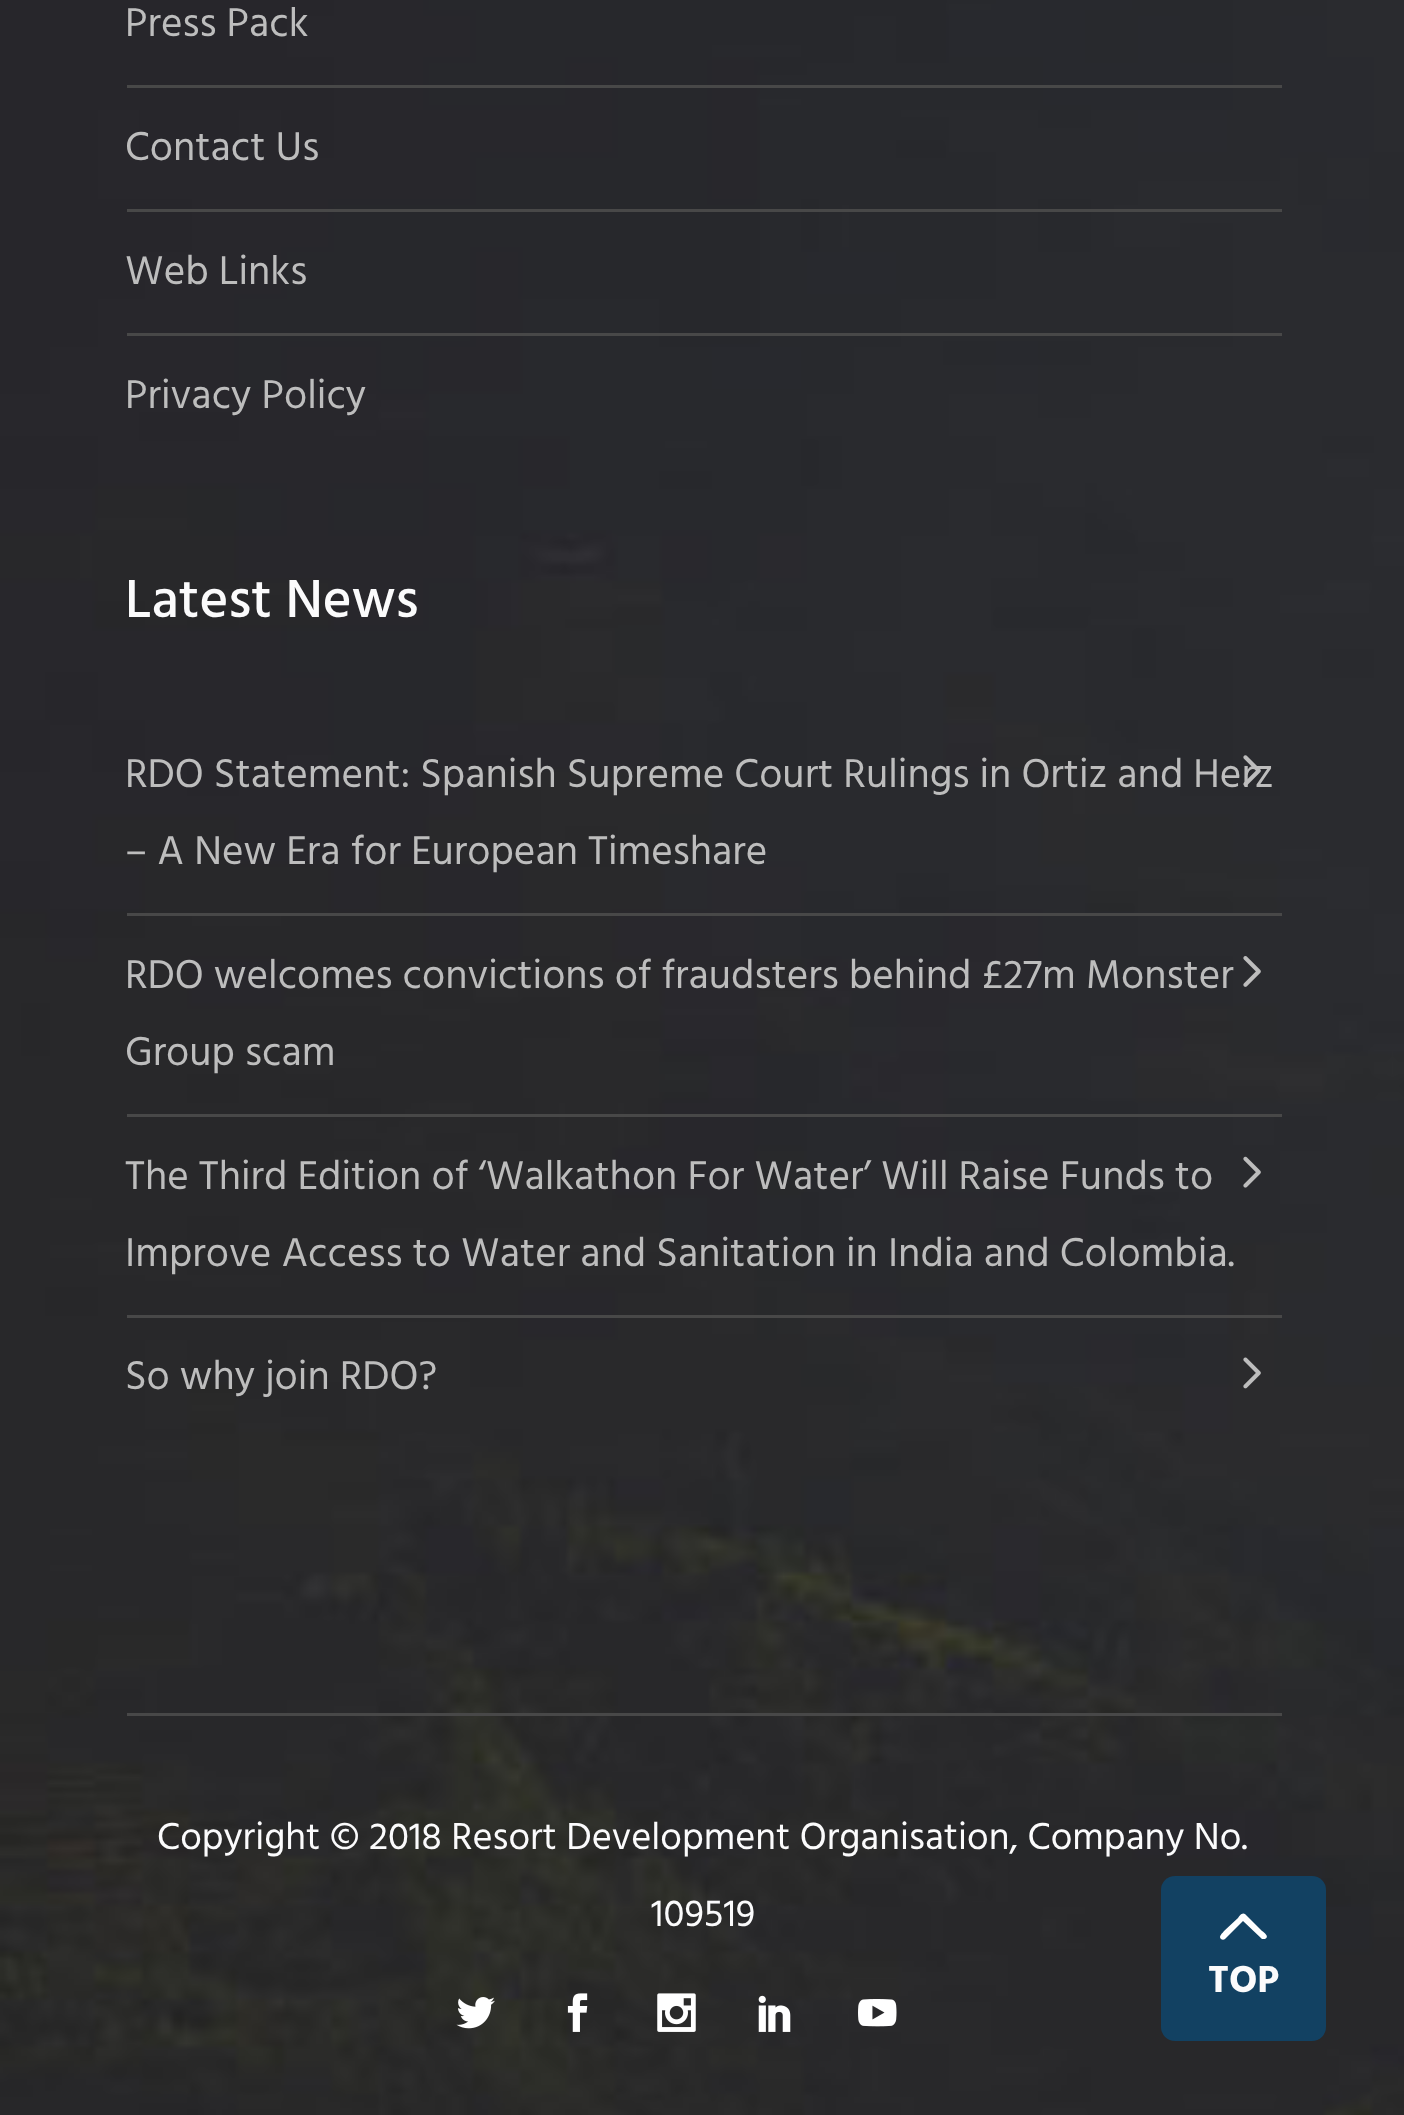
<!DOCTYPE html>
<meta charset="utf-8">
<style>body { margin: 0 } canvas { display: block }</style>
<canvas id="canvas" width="1404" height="2115"></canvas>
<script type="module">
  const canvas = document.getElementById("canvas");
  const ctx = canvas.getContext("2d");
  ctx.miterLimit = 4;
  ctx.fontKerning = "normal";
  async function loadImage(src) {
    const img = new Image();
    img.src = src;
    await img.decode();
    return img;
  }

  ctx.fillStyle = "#ffffff";
  ctx.fillRect(0, 0, 1404, 2115);
  ctx.drawImage(await loadImage("img1.png"), 0, 0, 1404, 2115);
  ctx.fillStyle = "#484848";
  ctx.fillRect(127, 85, 1155, 3);
  ctx.font = "41.25px Hind";
  ctx.fillStyle = "#bdbdbd";
  ctx.fillText("Press Pack", 125, 36);
  ctx.fillStyle = "#484848";
  ctx.fillRect(127, 209, 1155, 3);
  ctx.fillStyle = "#bdbdbd";
  ctx.fillText("Contact Us", 125, 160);
  ctx.fillStyle = "#484848";
  ctx.fillRect(127, 333, 1155, 3);
  ctx.fillStyle = "#bdbdbd";
  ctx.fillText("Web Links", 125, 284);
  ctx.fillText("Privacy Policy", 125, 408);
  ctx.font = "500 55px Hind";
  ctx.fillStyle = "#fbfbfc";
  ctx.fillText("Latest News", 125, 617);
  ctx.fillStyle = "#484848";
  ctx.fillRect(127, 913, 1155, 3);
  ctx.font = "41.25px Hind";
  ctx.fillStyle = "#bdbdbd";
  ctx.fillText("RDO Statement: Spanish Supreme Court Rulings in Ortiz and Herz", 125, 787);
  ctx.drawImage(await loadImage("img2.png"), 1243, 755, 18, 31);
  ctx.fillText("– A New Era for European Timeshare", 125, 864);
  ctx.fillStyle = "#484848";
  ctx.fillRect(127, 1114, 1155, 3);
  ctx.fillStyle = "#bdbdbd";
  ctx.fillText("RDO welcomes convictions of fraudsters behind £27m Monster", 125, 988);
  ctx.drawImage(await loadImage("img3.png"), 1243, 956, 18, 31);
  ctx.fillText("Group scam", 125, 1065);
  ctx.fillStyle = "#484848";
  ctx.fillRect(127, 1315, 1155, 3);
  ctx.fillStyle = "#bdbdbd";
  ctx.fillText("The Third Edition of ‘Walkathon For Water’ Will Raise Funds to", 125, 1189);
  ctx.drawImage(await loadImage("img4.png"), 1243, 1156, 18, 32);
  ctx.fillText("Improve Access to Water and Sanitation in India and Colombia.", 125, 1266);
  ctx.fillText("So why join RDO?", 125, 1389);
  ctx.drawImage(await loadImage("img5.png"), 1243, 1357, 18, 32);
  ctx.fillStyle = "#484848";
  ctx.fillRect(127, 1713, 1155, 3);
  ctx.font = "38.5px Hind";
  ctx.fillStyle = "#fbfbfc";
  ctx.fillText("Copyright © 2018 Resort Development Organisation, Company No.", 157, 1849);
  ctx.fillText("109519", 651, 1926);
  ctx.drawImage(await loadImage("img6.png"), 456, 1997, 39, 32);
  ctx.drawImage(await loadImage("img7.png"), 567, 1993, 21, 39);
  ctx.drawImage(await loadImage("img8.png"), 657, 1993, 39, 39);
  ctx.drawImage(await loadImage("img9.png"), 758, 1995, 33, 37);
  ctx.drawImage(await loadImage("img10.png"), 858, 1999, 39, 28);
  ctx.fillStyle = "#124162";
  ctx.beginPath();
  ctx.roundRect(1161, 1876, 165, 165, 14);
  ctx.fill();
  ctx.fillStyle = "#ffffff";
  ctx.beginPath();
  ctx.moveTo(1225, 1939);
  ctx.bezierCurveTo(1224, 1940, 1222, 1940, 1221, 1939);
  ctx.bezierCurveTo(1218, 1936, 1223, 1933, 1224, 1931);
  ctx.lineTo(1238, 1918);
  ctx.bezierCurveTo(1239, 1916, 1242, 1912, 1245, 1914);
  ctx.lineTo(1262, 1931);
  ctx.bezierCurveTo(1264, 1932, 1270, 1937, 1265, 1939);
  ctx.lineTo(1262, 1939);
  ctx.lineTo(1243, 1921);
  ctx.closePath();
  ctx.fill();
  ctx.font = "bold 38.5px Hind";
  ctx.fillStyle = "#fbfbfc";
  ctx.fillText("TOP", 1208, 1992);
</script>
